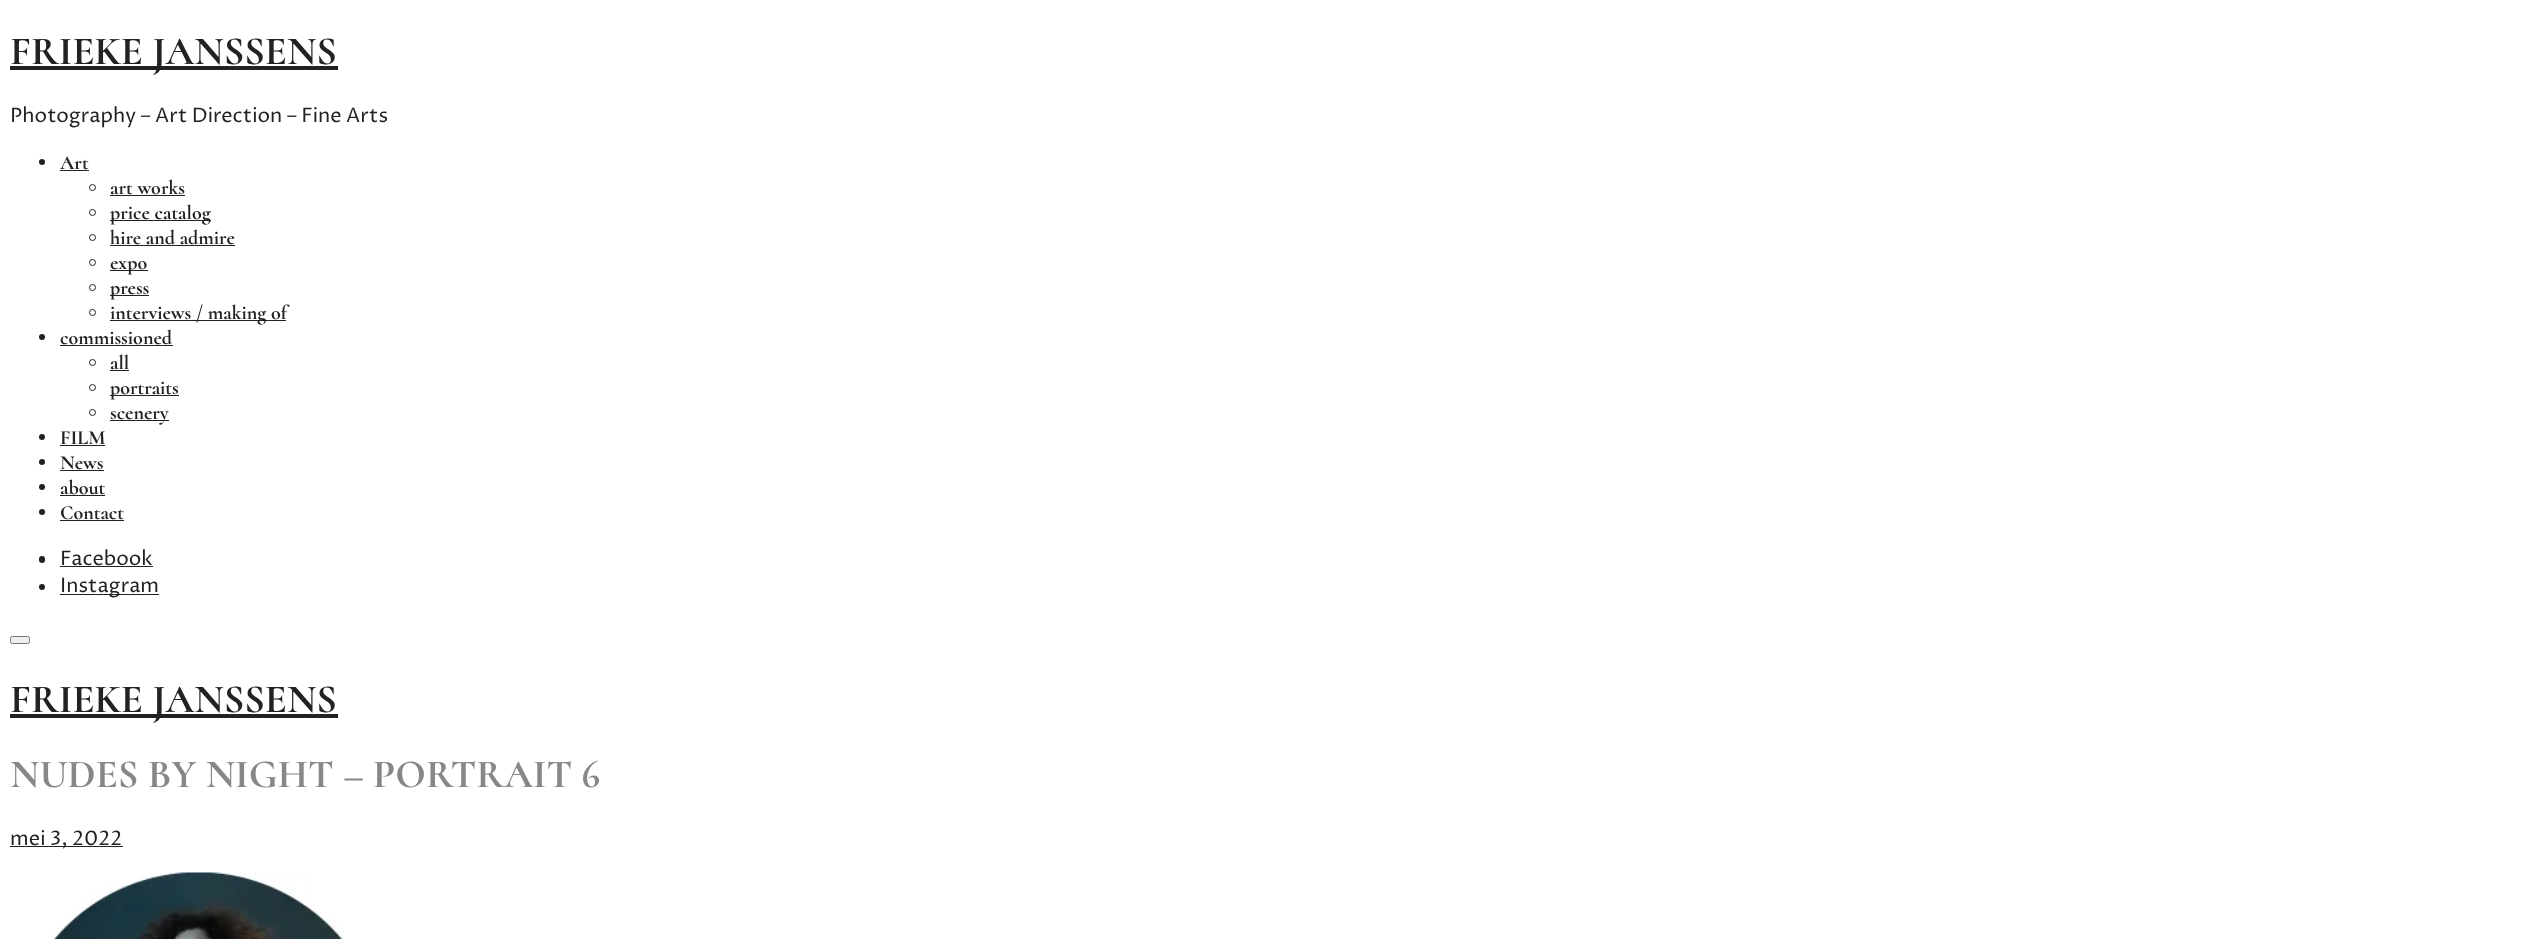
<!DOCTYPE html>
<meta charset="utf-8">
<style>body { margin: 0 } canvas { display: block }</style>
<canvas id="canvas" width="2545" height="939"></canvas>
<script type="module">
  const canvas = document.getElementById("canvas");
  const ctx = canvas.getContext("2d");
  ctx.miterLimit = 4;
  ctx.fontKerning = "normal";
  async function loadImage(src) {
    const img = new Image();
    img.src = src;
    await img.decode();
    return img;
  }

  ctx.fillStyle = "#ffffff";
  ctx.fillRect(0, 0, 2545, 939);
  ctx.fillStyle = "#222222";
  ctx.fillRect(10, 66, 328, 4);
  ctx.font = "bold 40px Cormorant";
  ctx.fillText("FRIEKE JANSSENS", 10, 64);
  ctx.font = "20px Proza Libre";
  ctx.fillText("Photography – Art Direction – Fine Arts", 10, 122);
  ctx.beginPath();
  ctx.arc(42, 162, 3, 0, Math.PI * 2);
  ctx.fill();
  ctx.font = "bold 20px Cormorant";
  ctx.fillText("Art", 60, 169);
  ctx.fillRect(60, 170, 29, 1);
  ctx.beginPath();
  ctx.arc(92.5, 187.5, 3, 0, Math.PI * 2);
  ctx.strokeStyle = "#222222";
  ctx.stroke();
  ctx.fillText("art works", 110, 194);
  ctx.fillRect(110, 195, 75, 1);
  ctx.beginPath();
  ctx.arc(92.5, 212.5, 3, 0, Math.PI * 2);
  ctx.stroke();
  ctx.fillRect(110, 220, 101, 1);
  ctx.fillText("price catalog", 110, 219);
  ctx.beginPath();
  ctx.arc(92.5, 237.5, 3, 0, Math.PI * 2);
  ctx.stroke();
  ctx.fillText("hire and admire", 110, 244);
  ctx.fillRect(110, 245, 125, 1);
  ctx.beginPath();
  ctx.arc(92.5, 262.5, 3, 0, Math.PI * 2);
  ctx.stroke();
  ctx.fillRect(110, 270, 38, 1);
  ctx.fillText("expo", 110, 269);
  ctx.beginPath();
  ctx.arc(92.5, 287.5, 3, 0, Math.PI * 2);
  ctx.stroke();
  ctx.fillRect(110, 295, 39, 1);
  ctx.fillText("press", 110, 294);
  ctx.beginPath();
  ctx.arc(92.5, 312.5, 3, 0, Math.PI * 2);
  ctx.stroke();
  ctx.fillRect(110, 320, 176, 1);
  ctx.fillText("interviews / making of", 110, 319);
  ctx.beginPath();
  ctx.arc(42, 337, 3, 0, Math.PI * 2);
  ctx.fill();
  ctx.fillText("commissioned", 60, 344);
  ctx.fillRect(60, 345, 113, 1);
  ctx.beginPath();
  ctx.arc(92.5, 362.5, 3, 0, Math.PI * 2);
  ctx.stroke();
  ctx.fillText("all", 110, 369);
  ctx.fillRect(110, 370, 19, 1);
  ctx.beginPath();
  ctx.arc(92.5, 387.5, 3, 0, Math.PI * 2);
  ctx.stroke();
  ctx.fillRect(110, 395, 69, 1);
  ctx.fillText("portraits", 110, 394);
  ctx.beginPath();
  ctx.arc(92.5, 412.5, 3, 0, Math.PI * 2);
  ctx.stroke();
  ctx.fillRect(110, 420, 59, 1);
  ctx.fillText("scenery", 110, 419);
  ctx.beginPath();
  ctx.arc(42, 437, 3, 0, Math.PI * 2);
  ctx.fill();
  ctx.fillText("FILM", 60, 444);
  ctx.fillRect(60, 445, 45, 1);
  ctx.beginPath();
  ctx.arc(42, 462, 3, 0, Math.PI * 2);
  ctx.fill();
  ctx.fillText("News", 60, 469);
  ctx.fillRect(60, 470, 44, 1);
  ctx.beginPath();
  ctx.arc(42, 487, 3, 0, Math.PI * 2);
  ctx.fill();
  ctx.fillText("about", 60, 494);
  ctx.fillRect(60, 495, 45, 1);
  ctx.beginPath();
  ctx.arc(42, 512, 3, 0, Math.PI * 2);
  ctx.fill();
  ctx.fillText("Contact", 60, 519);
  ctx.fillRect(60, 520, 64, 1);
  ctx.beginPath();
  ctx.roundRect(39, 556, 6, 7, 3);
  ctx.fill();
  ctx.font = "20px Proza Libre";
  ctx.fillText("Facebook", 60, 565);
  ctx.fillRect(60, 566, 93, 1);
  ctx.beginPath();
  ctx.arc(42, 587, 3, 0, Math.PI * 2);
  ctx.fill();
  ctx.fillRect(60, 594, 99, 1);
  ctx.fillText("Instagram", 60, 592);
  ctx.fillStyle = "#efefef";
  ctx.beginPath();
  ctx.roundRect(10.5, 636.5, 19, 7, 2);
  ctx.fill();
  ctx.strokeStyle = "#767676";
  ctx.stroke();
  ctx.fillStyle = "#222222";
  ctx.fillRect(10, 714, 328, 4);
  ctx.font = "bold 40px Cormorant";
  ctx.fillText("FRIEKE JANSSENS", 10, 712);
  ctx.fillStyle = "#878787";
  ctx.fillText("NUDES BY NIGHT – PORTRAIT 6", 10, 787);
  ctx.fillStyle = "#222222";
  ctx.fillRect(10, 846, 113, 1);
  ctx.font = "20px Proza Libre";
  ctx.fillText("mei 3, 2022", 10, 845);
  ctx.drawImage(await loadImage("img1.png"), 51, 872, 293, 67);
</script>
